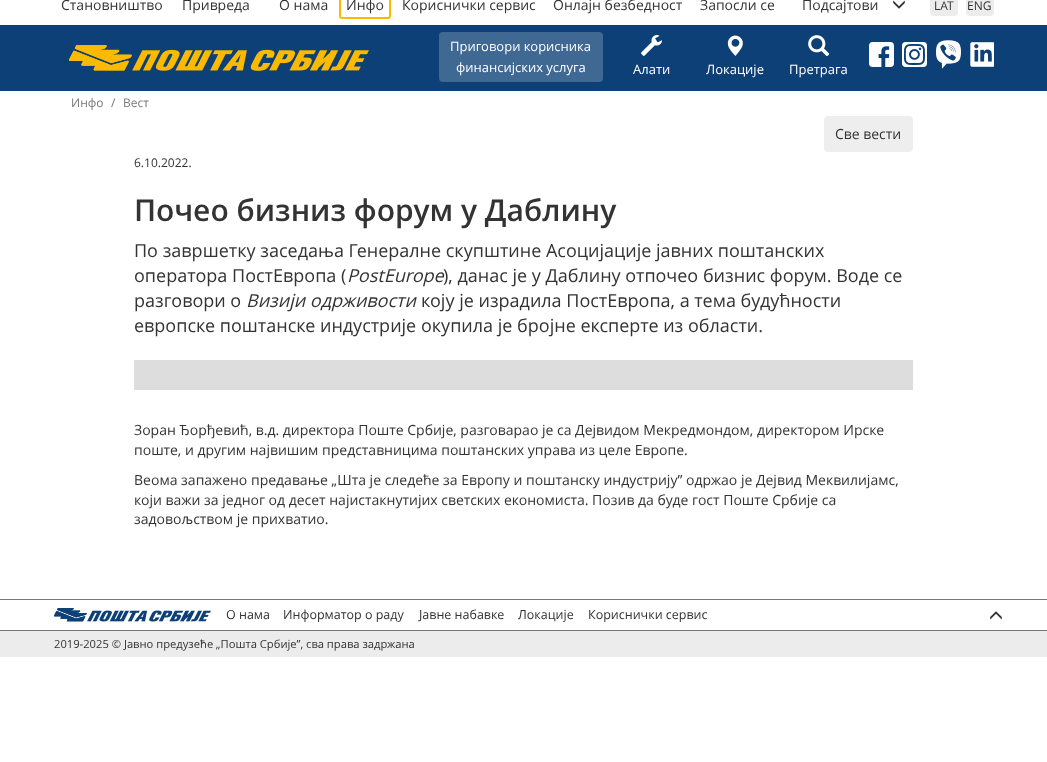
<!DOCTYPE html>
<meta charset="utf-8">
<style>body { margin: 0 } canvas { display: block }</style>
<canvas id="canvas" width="1047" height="762"></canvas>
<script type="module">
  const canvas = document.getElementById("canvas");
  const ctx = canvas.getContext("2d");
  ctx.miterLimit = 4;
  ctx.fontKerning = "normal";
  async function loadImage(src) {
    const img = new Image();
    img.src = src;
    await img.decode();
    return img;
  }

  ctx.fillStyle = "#ffffff";
  ctx.fillRect(0, 0, 1047, 762);
  ctx.fillStyle = "#0c4076";
  ctx.fillRect(0, 25, 1047, 66);
  ctx.font = "14px Open Sans";
  ctx.fillStyle = "#333333";
  ctx.fillText("Становништво", 61, 10);
  ctx.fillText("Привреда", 182, 10);
  ctx.fillText("О нама", 279, 10);
  ctx.beginPath();
  ctx.roundRect(340, -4, 50, 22, 2);
  ctx.strokeStyle = "#fbba00";
  ctx.lineWidth = 2;
  ctx.stroke();
  ctx.fillText("Инфо", 346, 10);
  ctx.fillText("Кориснички сервис", 402, 10);
  ctx.fillText("Онлајн безбедност", 553, 10);
  ctx.fillText("Запосли се", 700, 10);
  ctx.fillText("Подсајтови", 802, 10);
  ctx.drawImage(await loadImage("img1.png"), 893, 0, 12, 9);
  ctx.fillStyle = "#ececec";
  ctx.beginPath();
  ctx.roundRect(930, -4, 28, 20, 4);
  ctx.fill();
  ctx.font = "12px Open Sans";
  ctx.fillStyle = "#333333";
  ctx.fillText("LAT", 934, 10);
  ctx.fillStyle = "#ececec";
  ctx.beginPath();
  ctx.roundRect(966, -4, 28, 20, 4);
  ctx.fill();
  ctx.fillStyle = "#333333";
  ctx.fillText("ENG", 967, 10);
  ctx.fillStyle = "#3f6893";
  ctx.beginPath();
  ctx.roundRect(439, 32, 164, 50, 4);
  ctx.fill();
  ctx.font = "13px Open Sans";
  ctx.fillStyle = "#ffffff";
  ctx.fillText("Приговори корисника", 450, 51);
  ctx.fillText("финансијских услуга", 456, 72);
  ctx.drawImage(await loadImage("img2.png"), 641, 35, 21, 21);
  ctx.fillText("Алати", 633, 74);
  ctx.drawImage(await loadImage("img3.png"), 727, 35, 16, 21);
  ctx.fillText("Локације", 706, 74);
  ctx.drawImage(await loadImage("img4.png"), 808, 35, 22, 22);
  ctx.fillText("Претрага", 789, 74);
  ctx.drawImage(await loadImage("img5.png"), 69, 45, 300, 26);
  ctx.drawImage(await loadImage("img6.png"), 869, 42, 25, 25);
  ctx.drawImage(await loadImage("img7.png"), 902, 42, 25, 25);
  ctx.drawImage(await loadImage("img8.png"), 936, 40, 25, 29);
  ctx.drawImage(await loadImage("img9.png"), 970, 42, 24, 25);
  ctx.font = "12px Open Sans";
  ctx.fillStyle = "#777777";
  ctx.fillText("Инфо", 71, 107);
  ctx.fillText("/", 111, 107);
  ctx.fillText("Вест", 123, 107);
  ctx.fillStyle = "#eeeeee";
  ctx.beginPath();
  ctx.roundRect(824, 116, 89, 36, 4);
  ctx.fill();
  ctx.font = "14px Open Sans";
  ctx.fillStyle = "#333333";
  ctx.fillText("Све вести", 835, 139);
  ctx.font = "12px Open Sans";
  ctx.fillText("6.10.2022.", 134, 167);
  ctx.font = "600 30px Open Sans";
  ctx.fillText("Почео бизниз форум у Даблину", 134, 221);
  ctx.font = "18px Open Sans";
  ctx.fillText("По завршетку заседања Генералне скупштине Асоцијације јавних поштанских", 134, 257);
  ctx.fillText("оператора ПостЕвропа (", 134, 282);
  ctx.font = "italic 18px Open Sans";
  ctx.fillText("PostEurope", 347, 282);
  ctx.font = "18px Open Sans";
  ctx.fillText("), данас је у Даблину отпочео бизнис форум. Воде се", 443, 282);
  ctx.fillText("разговори о", 134, 307);
  ctx.font = "italic 18px Open Sans";
  ctx.fillText("Визији одрживости", 246, 307);
  ctx.font = "18px Open Sans";
  ctx.fillText("коју је израдила ПостЕвропа, а тема будућности", 421, 307);
  ctx.fillText("европске поштанске индустрије окупила је бројне експерте из области.", 134, 332);
  ctx.fillStyle = "#dddddd";
  ctx.fillRect(134, 360, 779, 30);
  ctx.font = "14px Open Sans";
  ctx.fillStyle = "#333333";
  ctx.fillText("Зоран Ђорђевић, в.д. директора Поште Србије, разговарао је са Дејвидом Мекредмондом, директором Ирске", 134, 435);
  ctx.fillText("поште, и другим највишим представницима поштанских управа из целе Европе.", 134, 455);
  ctx.fillText("Веома запажено предавање „Шта је следеће за Европу и поштанску индустрију” одржао је Дејвид Меквилијамс,", 134, 485);
  ctx.fillText("који важи за једног од десет најистакнутијих светских економиста. Позив да буде гост Поште Србије са", 134, 505);
  ctx.fillText("задовољством je прихватио.", 134, 524);
  ctx.fillStyle = "#777777";
  ctx.fillRect(0, 599, 1047, 1);
  ctx.fillRect(0, 630, 1047, 1);
  ctx.drawImage(await loadImage("img10.png"), 54, 608, 157, 14);
  ctx.font = "12.5px Open Sans";
  ctx.fillStyle = "#333333";
  ctx.fillText("О нама", 226, 619);
  ctx.fillText("Информатор о раду", 283, 619);
  ctx.fillText("Јавне набавке", 419, 619);
  ctx.fillText("Локације", 518, 619);
  ctx.fillText("Кориснички сервис", 588, 619);
  ctx.drawImage(await loadImage("img11.png"), 990, 611, 12, 9);
  ctx.fillStyle = "#ececec";
  ctx.fillRect(0, 631, 1047, 26);
  ctx.font = "11.2px Open Sans";
  ctx.fillStyle = "#333333";
  ctx.fillText("2019-2025 © Јавно предузеће „Пошта Србије”, сва права задржана", 54, 648);
</script>
